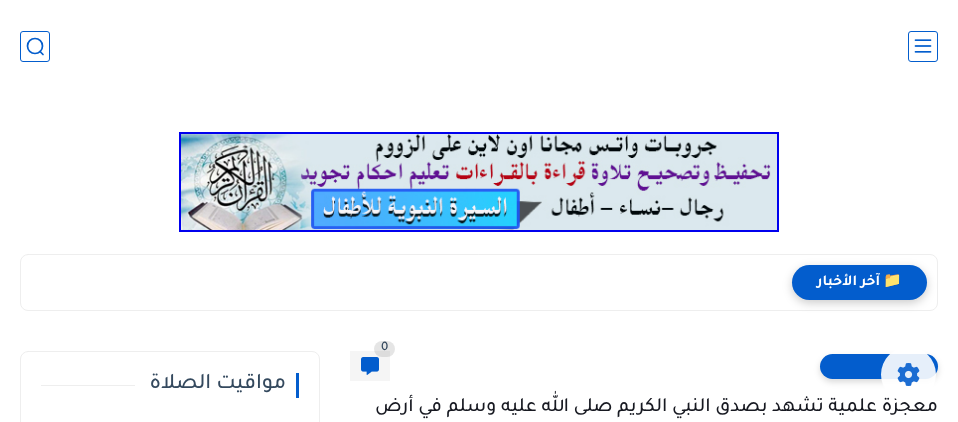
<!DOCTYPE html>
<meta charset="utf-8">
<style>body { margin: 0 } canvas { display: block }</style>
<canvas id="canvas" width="958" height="422"></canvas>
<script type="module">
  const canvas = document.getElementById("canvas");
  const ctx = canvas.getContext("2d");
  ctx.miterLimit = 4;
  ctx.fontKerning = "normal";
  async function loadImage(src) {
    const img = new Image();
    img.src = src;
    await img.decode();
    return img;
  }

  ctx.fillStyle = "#ffffff";
  ctx.fillRect(0, 0, 958, 422);
  ctx.beginPath();
  ctx.roundRect(908.5, 31.5, 29, 30, 2.5);
  ctx.strokeStyle = "#035dcd";
  ctx.stroke();
  ctx.drawImage(await loadImage("img1.png"), 914, 39, 18, 14);
  ctx.beginPath();
  ctx.roundRect(20.5, 31.5, 29, 30, 2.5);
  ctx.stroke();
  ctx.beginPath();
  ctx.arc(35, 46, 7.5, 0, Math.PI * 2);
  ctx.lineWidth = 1.7;
  ctx.stroke();
  ctx.beginPath();
  ctx.moveTo(40, 51.5);
  ctx.lineTo(43, 54.5);
  ctx.lineCap = "round";
  ctx.lineJoin = "round";
  ctx.stroke();
  ctx.strokeStyle = "#0000ee";
  ctx.lineWidth = 2;
  ctx.lineJoin = "miter";
  ctx.strokeRect(180, 133, 598, 98);
  ctx.drawImage(await loadImage("img2.png"), 181, 134, 596, 96);
  ctx.beginPath();
  ctx.roundRect(20.5, 254.5, 917, 56, 7.5);
  ctx.strokeStyle = "#eeeeee";
  ctx.lineWidth = 1;
  ctx.stroke();
  ctx.fillStyle = "rgba(0, 0, 0, 0.2)";
  ctx.filter = "blur(5px)";
  ctx.beginPath();
  ctx.roundRect(792, 268, 135, 35, 17.5);
  ctx.fill();
  ctx.filter = "none";
  ctx.fillStyle = "#035dcd";
  ctx.beginPath();
  ctx.roundRect(792, 265, 135, 35, 17.5);
  ctx.fill();
  ctx.direction = "rtl";
  ctx.font = "bold 15px Noto Color Emoji";
  ctx.fillStyle = "#ffffff";
  ctx.fillText("📁", 902, 285);
  ctx.font = "bold 15px Tajawal";
  ctx.fillText("آخر الأخبار", 880, 285);
  ctx.fillStyle = "rgba(0, 0, 0, 0.04)";
  ctx.fillRect(350, 351, 40, 30);
  ctx.fillStyle = "rgba(0, 0, 0, 0.1)";
  ctx.beginPath();
  ctx.roundRect(374, 341, 21, 16, 8);
  ctx.fill();
  ctx.direction = "ltr";
  ctx.font = "500 13px Tajawal";
  ctx.fillStyle = "#34495e";
  ctx.fillText("0", 381, 350);
  ctx.drawImage(await loadImage("img3.png"), 361, 357, 18, 18);
  ctx.fillStyle = "rgba(0, 0, 0, 0.15)";
  ctx.filter = "blur(3px)";
  ctx.beginPath();
  ctx.roundRect(820, 357, 118, 25, 12.5);
  ctx.fill();
  ctx.filter = "none";
  ctx.fillStyle = "#035dcd";
  ctx.beginPath();
  ctx.roundRect(820, 354, 118, 25, 12.5);
  ctx.fill();
  ctx.direction = "rtl";
  ctx.font = "500 20px Tajawal";
  ctx.fillStyle = "#171921";
  ctx.fillText("معجزة علمية تشهد بصدق النبي الكريم صلى الله عليه وسلم في أرض", 938, 411);
  ctx.beginPath();
  ctx.roundRect(20.5, 351.5, 299, 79, 7.5);
  ctx.stroke();
  ctx.fillStyle = "#035dcd";
  ctx.fillRect(296, 373, 3, 25);
  ctx.font = "500 22px Tajawal";
  ctx.fillStyle = "#34495e";
  ctx.fillText("مواقيت الصلاة", 286, 388);
  ctx.fillStyle = "#eeeeee";
  ctx.fillRect(41, 385, 94, 1);
  ctx.fillStyle = "rgba(255, 255, 255, 0.9)";
  ctx.beginPath();
  ctx.arc(908.5, 374.5, 27.5, 0, Math.PI * 2);
  ctx.fill();
  ctx.drawImage(await loadImage("img4.png"), 897, 363, 23, 23);
</script>
